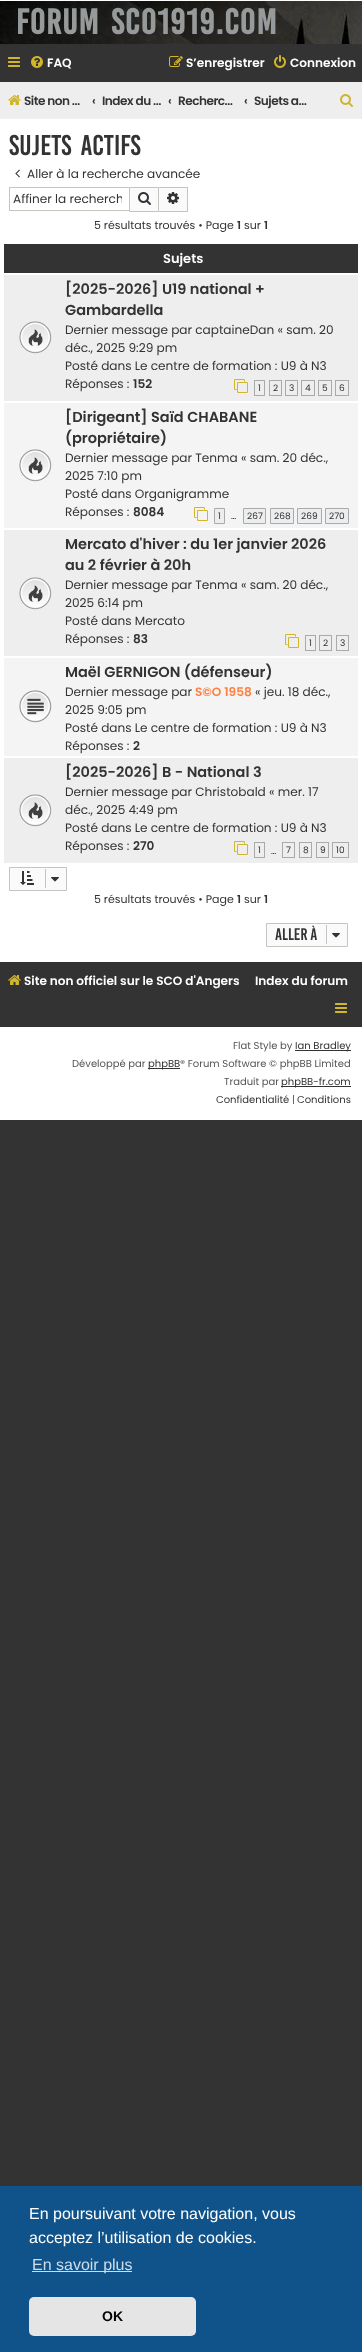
<!DOCTYPE html>
<meta charset="utf-8">
<style>body { margin: 0 } canvas { display: block }</style>
<canvas id="canvas" width="362" height="2352"></canvas>
<script type="module">
  const canvas = document.getElementById("canvas");
  const ctx = canvas.getContext("2d");
  ctx.miterLimit = 4;
  ctx.fontKerning = "normal";
  async function loadImage(src) {
    const img = new Image();
    img.src = src;
    await img.decode();
    return img;
  }

  ctx.fillStyle = "#333333";
  ctx.fillRect(0, 0, 362, 2352);
  ctx.fillStyle = "#ffffff";
  ctx.fillRect(0, 0, 362, 1120);
  ctx.drawImage(await loadImage("img1.png"), 0, 1, 362, 43);
  ctx.letterSpacing = "1px";
  ctx.wordSpacing = "4px";
  ctx.font = "bold 27.5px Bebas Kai";
  ctx.fillStyle = "#979a9a";
  ctx.fillText("Forum SCO1919.com", 16, 34);
  ctx.fillStyle = "#333333";
  ctx.fillRect(0, 44, 362, 38);
  ctx.drawImage(await loadImage("img2.png"), 8, 57, 12, 10);
  ctx.drawImage(await loadImage("img3.png"), 31, 56, 12, 12);
  ctx.letterSpacing = "0px";
  ctx.wordSpacing = "0px";
  ctx.font = "600 12.1px Poppins";
  ctx.fillStyle = "#ffffff";
  ctx.fillText("FAQ", 47, 67);
  ctx.drawImage(await loadImage("img4.png"), 169, 56, 14, 11);
  ctx.fillText("S’enregistrer", 186, 67);
  ctx.drawImage(await loadImage("img5.png"), 274, 55, 12, 13);
  ctx.fillText("Connexion", 290, 67);
  ctx.fillStyle = "#eeeeee";
  ctx.fillRect(0, 82, 362, 37);
  ctx.drawImage(await loadImage("img6.png"), 8, 95, 13, 10);
  ctx.letterSpacing = "-0.5px";
  ctx.fillStyle = "#333333";
  ctx.fillText("Site non …", 24, 105);
  ctx.letterSpacing = "0px";
  ctx.fillText("‹", 92, 105);
  ctx.letterSpacing = "-0.5px";
  ctx.fillText("Index du …", 102, 105);
  ctx.letterSpacing = "0px";
  ctx.fillText("‹", 168, 105);
  ctx.letterSpacing = "-0.5px";
  ctx.fillText("Recherc…", 178, 105);
  ctx.letterSpacing = "0px";
  ctx.fillText("‹", 244, 105);
  ctx.letterSpacing = "-0.5px";
  ctx.fillText("Sujets a…", 254, 105);
  ctx.drawImage(await loadImage("img7.png"), 340, 94, 13, 13);
  ctx.letterSpacing = "0px";
  ctx.wordSpacing = "4px";
  ctx.font = "22px Bebas Kai";
  ctx.fillText("Sujets actifs", 9, 155);
  ctx.drawImage(await loadImage("img8.png"), 15, 169, 5, 9);
  ctx.wordSpacing = "0px";
  ctx.font = "12.1px Poppins";
  ctx.fillText("Aller à la recherche avancée", 27, 178);
  ctx.fillStyle = "#c7c3bf";
  ctx.fillRect(9, 187, 120, 1);
  ctx.fillRect(9, 210, 120, 1);
  ctx.fillRect(9, 187, 1, 24);
  ctx.save();
  ctx.beginPath();
  ctx.rect(13, 190, 109, 18);
  ctx.clip();
  ctx.fillStyle = "#333333";
  ctx.fillText("Affiner la recherch", 13, 203);
  ctx.restore();
  ctx.fillStyle = "#fafafa";
  ctx.beginPath();
  ctx.rect(129.5, 187.5, 29, 24);
  ctx.fill();
  ctx.strokeStyle = "#c7c3bf";
  ctx.stroke();
  ctx.drawImage(await loadImage("img9.png"), 138, 192, 13, 13);
  ctx.fillRect(159, 188, 28, 23);
  ctx.fillStyle = "#c7c3bf";
  ctx.fillRect(159, 187, 29, 1);
  ctx.fillRect(187, 187, 1, 25);
  ctx.fillRect(159, 211, 29, 1);
  ctx.drawImage(await loadImage("img10.png"), 167, 192, 12, 12);
  ctx.font = "11px Poppins";
  ctx.fillStyle = "#333333";
  ctx.fillText("5 résultats trouvés • Page", 94, 229);
  ctx.font = "600 11px Poppins";
  ctx.fillText("1", 237, 229);
  ctx.font = "11px Poppins";
  ctx.fillText("sur", 244, 229);
  ctx.font = "600 11px Poppins";
  ctx.fillText("1", 264, 229);
  ctx.fillRect(4, 244, 354, 29);
  ctx.font = "600 13px Poppins";
  ctx.fillStyle = "#ffffff";
  ctx.fillText("Sujets", 163, 263);
  ctx.fillStyle = "#eeeeee";
  ctx.fillRect(4, 275, 354, 126);
  ctx.drawImage(await loadImage("img11.png"), 19, 321, 33, 33);
  ctx.font = "600 14.5px Poppins";
  ctx.fillStyle = "#333333";
  ctx.fillText("[2025-2026] U19 national +", 65, 294);
  ctx.fillText("Gambardella", 65, 315);
  ctx.font = "12.1px Poppins";
  ctx.fillText("Dernier message par captaineDan « sam. 20", 65, 334);
  ctx.fillText("déc., 2025 9:29 pm", 65, 352);
  ctx.fillText("Posté dans Le centre de formation : U9 à N3", 65, 370);
  ctx.fillText("Réponses :", 65, 388);
  ctx.font = "600 12.1px Poppins";
  ctx.fillText("152", 133, 388);
  ctx.drawImage(await loadImage("img12.png"), 234, 379, 14, 14);
  ctx.strokeStyle = "#aaaaaa";
  ctx.strokeRect(254.5, 380.5, 10, 15);
  ctx.font = "9px Poppins";
  ctx.fillText("1", 258, 391);
  ctx.strokeRect(269.5, 380.5, 12, 15);
  ctx.fillText("2", 273, 391);
  ctx.strokeRect(285.5, 380.5, 12, 15);
  ctx.fillText("3", 289, 391);
  ctx.strokeRect(301.5, 380.5, 13, 15);
  ctx.fillText("4", 305, 391);
  ctx.strokeRect(318.5, 380.5, 13, 15);
  ctx.fillText("5", 322, 391);
  ctx.strokeRect(335.5, 380.5, 13, 15);
  ctx.fillText("6", 339, 391);
  ctx.fillStyle = "#f4f4f4";
  ctx.fillRect(4, 403, 354, 125);
  ctx.drawImage(await loadImage("img13.png"), 19, 449, 33, 33);
  ctx.font = "600 14.5px Poppins";
  ctx.fillStyle = "#333333";
  ctx.fillText("[Dirigeant] Saïd CHABANE", 65, 422);
  ctx.fillText("(propriétaire)", 65, 443);
  ctx.font = "12.1px Poppins";
  ctx.fillText("Dernier message par Tenma « sam. 20 déc.,", 65, 462);
  ctx.fillText("2025 7:10 pm", 65, 480);
  ctx.fillText("Posté dans Organigramme", 65, 498);
  ctx.fillText("Réponses :", 65, 516);
  ctx.font = "600 12.1px Poppins";
  ctx.fillText("8084", 133, 516);
  ctx.drawImage(await loadImage("img14.png"), 194, 507, 14, 14);
  ctx.fillStyle = "#ecedee";
  ctx.beginPath();
  ctx.rect(214.5, 508.5, 10, 15);
  ctx.fill();
  ctx.stroke();
  ctx.font = "9px Poppins";
  ctx.fillStyle = "#333333";
  ctx.fillText("1", 218, 519);
  ctx.fillText("…", 231, 519);
  ctx.fillStyle = "#ecedee";
  ctx.beginPath();
  ctx.rect(243.5, 508.5, 22, 15);
  ctx.fill();
  ctx.stroke();
  ctx.fillStyle = "#333333";
  ctx.fillText("267", 247, 519);
  ctx.fillStyle = "#ecedee";
  ctx.beginPath();
  ctx.rect(270.5, 508.5, 23, 15);
  ctx.fill();
  ctx.stroke();
  ctx.fillStyle = "#333333";
  ctx.fillText("268", 274, 519);
  ctx.fillStyle = "#ecedee";
  ctx.beginPath();
  ctx.rect(297.5, 508.5, 24, 15);
  ctx.fill();
  ctx.stroke();
  ctx.fillStyle = "#333333";
  ctx.fillText("269", 301, 519);
  ctx.fillStyle = "#ecedee";
  ctx.beginPath();
  ctx.rect(325.5, 508.5, 23, 15);
  ctx.fill();
  ctx.stroke();
  ctx.fillStyle = "#333333";
  ctx.fillText("270", 329, 519);
  ctx.fillStyle = "#eeeeee";
  ctx.fillRect(4, 530, 354, 126);
  ctx.drawImage(await loadImage("img15.png"), 19, 577, 33, 33);
  ctx.font = "600 14.5px Poppins";
  ctx.fillStyle = "#333333";
  ctx.fillText("Mercato d'hiver : du 1er janvier 2026", 65, 549);
  ctx.fillText("au 2 février à 20h", 65, 570);
  ctx.font = "12.1px Poppins";
  ctx.fillText("Dernier message par Tenma « sam. 20 déc.,", 65, 589);
  ctx.fillText("2025 6:14 pm", 65, 607);
  ctx.fillText("Posté dans Mercato", 65, 625);
  ctx.fillText("Réponses :", 65, 643);
  ctx.font = "600 12.1px Poppins";
  ctx.fillText("83", 133, 643);
  ctx.drawImage(await loadImage("img12.png"), 285, 634, 14, 14);
  ctx.strokeRect(305.5, 635.5, 10, 15);
  ctx.font = "9px Poppins";
  ctx.fillText("1", 309, 646);
  ctx.strokeRect(319.5, 635.5, 12, 15);
  ctx.fillText("2", 323, 646);
  ctx.strokeRect(336.5, 635.5, 12, 15);
  ctx.fillText("3", 340, 646);
  ctx.fillStyle = "#f4f4f4";
  ctx.fillRect(4, 658, 354, 98);
  ctx.drawImage(await loadImage("img16.png"), 19, 690, 33, 33);
  ctx.font = "600 14.5px Poppins";
  ctx.fillStyle = "#333333";
  ctx.fillText("Maël GERNIGON (défenseur)", 65, 677);
  ctx.font = "12.1px Poppins";
  ctx.fillText("Dernier message par", 65, 696);
  ctx.font = "600 12.1px Poppins";
  ctx.fillStyle = "#ff8040";
  ctx.fillText("S©O 1958", 195, 696);
  ctx.font = "12.1px Poppins";
  ctx.fillStyle = "#333333";
  ctx.fillText("« jeu. 18 déc.,", 255, 696);
  ctx.fillText("2025 9:05 pm", 65, 714);
  ctx.fillText("Posté dans Le centre de formation : U9 à N3", 65, 732);
  ctx.fillText("Réponses :", 65, 750);
  ctx.font = "600 12.1px Poppins";
  ctx.fillText("2", 133, 750);
  ctx.fillStyle = "#eeeeee";
  ctx.fillRect(4, 758, 354, 105);
  ctx.drawImage(await loadImage("img15.png"), 19, 794, 33, 33);
  ctx.font = "600 14.5px Poppins";
  ctx.fillStyle = "#333333";
  ctx.fillText("[2025-2026] B - National 3", 65, 777);
  ctx.font = "12.1px Poppins";
  ctx.fillText("Dernier message par Christobald « mer. 17", 65, 796);
  ctx.fillText("déc., 2025 4:49 pm", 65, 814);
  ctx.fillText("Posté dans Le centre de formation : U9 à N3", 65, 832);
  ctx.fillText("Réponses :", 65, 850);
  ctx.font = "600 12.1px Poppins";
  ctx.fillText("270", 133, 850);
  ctx.drawImage(await loadImage("img12.png"), 234, 841, 14, 14);
  ctx.strokeRect(254.5, 842.5, 10, 15);
  ctx.font = "9px Poppins";
  ctx.fillText("1", 258, 853);
  ctx.strokeRect(282.5, 842.5, 12, 15);
  ctx.fillText("7", 286, 853);
  ctx.strokeRect(299.5, 842.5, 12, 15);
  ctx.fillText("8", 303, 853);
  ctx.strokeRect(316.5, 842.5, 12, 15);
  ctx.fillText("9", 320, 853);
  ctx.strokeRect(332.5, 842.5, 16, 15);
  ctx.fillText("10", 336, 853);
  ctx.fillText("…", 271, 854);
  ctx.fillStyle = "#fafafa";
  ctx.beginPath();
  ctx.rect(9.5, 867.5, 57, 23);
  ctx.fill();
  ctx.strokeStyle = "#c7c3bf";
  ctx.stroke();
  ctx.drawImage(await loadImage("img17.png"), 20, 871, 14, 14);
  ctx.fillStyle = "#c7c3bf";
  ctx.fillRect(45, 869, 1, 19);
  ctx.drawImage(await loadImage("img18.png"), 51, 877, 8, 5);
  ctx.font = "11px Poppins";
  ctx.fillStyle = "#333333";
  ctx.fillText("5 résultats trouvés • Page", 94, 903);
  ctx.font = "600 11px Poppins";
  ctx.fillText("1", 237, 903);
  ctx.font = "11px Poppins";
  ctx.fillText("sur", 244, 903);
  ctx.font = "600 11px Poppins";
  ctx.fillText("1", 264, 903);
  ctx.fillStyle = "#fafafa";
  ctx.beginPath();
  ctx.rect(266.5, 923.5, 81, 23);
  ctx.fill();
  ctx.stroke();
  ctx.font = "13px Bebas Kai";
  ctx.fillStyle = "#333333";
  ctx.fillText("Aller à", 275, 940);
  ctx.fillStyle = "#c7c3bf";
  ctx.fillRect(326, 925, 1, 19);
  ctx.drawImage(await loadImage("img18.png"), 332, 933, 8, 5);
  ctx.fillStyle = "#333333";
  ctx.fillRect(0, 962, 362, 65);
  ctx.drawImage(await loadImage("img19.png"), 8, 975, 13, 10);
  ctx.font = "600 12.1px Poppins";
  ctx.fillStyle = "#ffffff";
  ctx.fillText("Site non officiel sur le SCO d'Angers", 24, 985);
  ctx.fillText("Index du forum", 255, 985);
  ctx.drawImage(await loadImage("img2.png"), 335, 1003, 12, 10);
  ctx.font = "10px Poppins";
  ctx.fillStyle = "#555555";
  ctx.fillText("Flat Style by", 233, 1049);
  ctx.fillStyle = "#333333";
  ctx.fillRect(295, 1050, 56, 1);
  ctx.fillText("Ian Bradley", 295, 1049);
  ctx.fillStyle = "#555555";
  ctx.fillText("Développé par", 72, 1067);
  ctx.fillStyle = "#333333";
  ctx.fillRect(148, 1068, 32, 1);
  ctx.fillText("phpBB", 148, 1067);
  ctx.fillStyle = "#555555";
  ctx.fillText("® Forum Software © phpBB Limited", 180, 1067);
  ctx.fillText("Traduit par", 224, 1085);
  ctx.fillStyle = "#333333";
  ctx.fillRect(281, 1086, 70, 1);
  ctx.fillText("phpBB-fr.com", 281, 1085);
  ctx.fillText("Confidentialité", 216, 1103);
  ctx.fillStyle = "#555555";
  ctx.fillText("|", 292, 1103);
  ctx.fillStyle = "#333333";
  ctx.fillText("Conditions", 297, 1103);
  ctx.fillStyle = "#0f538a";
  ctx.fillRect(0, 2186, 362, 166);
  ctx.font = "16px Liberation Sans";
  ctx.fillStyle = "#ffffff";
  ctx.fillText("En poursuivant votre navigation, vous", 29, 2219);
  ctx.fillText("acceptez l’utilisation de cookies.", 29, 2243);
  ctx.fillStyle = "#cfdde8";
  ctx.fillRect(32, 2271, 100, 1);
  ctx.fillText("En savoir plus", 32, 2270);
  ctx.fillStyle = "#e5e5e5";
  ctx.beginPath();
  ctx.roundRect(29, 2297, 167, 39, 5);
  ctx.fill();
  ctx.font = "bold 14px Liberation Sans";
  ctx.fillStyle = "#000000";
  ctx.fillText("OK", 102, 2321);
</script>
